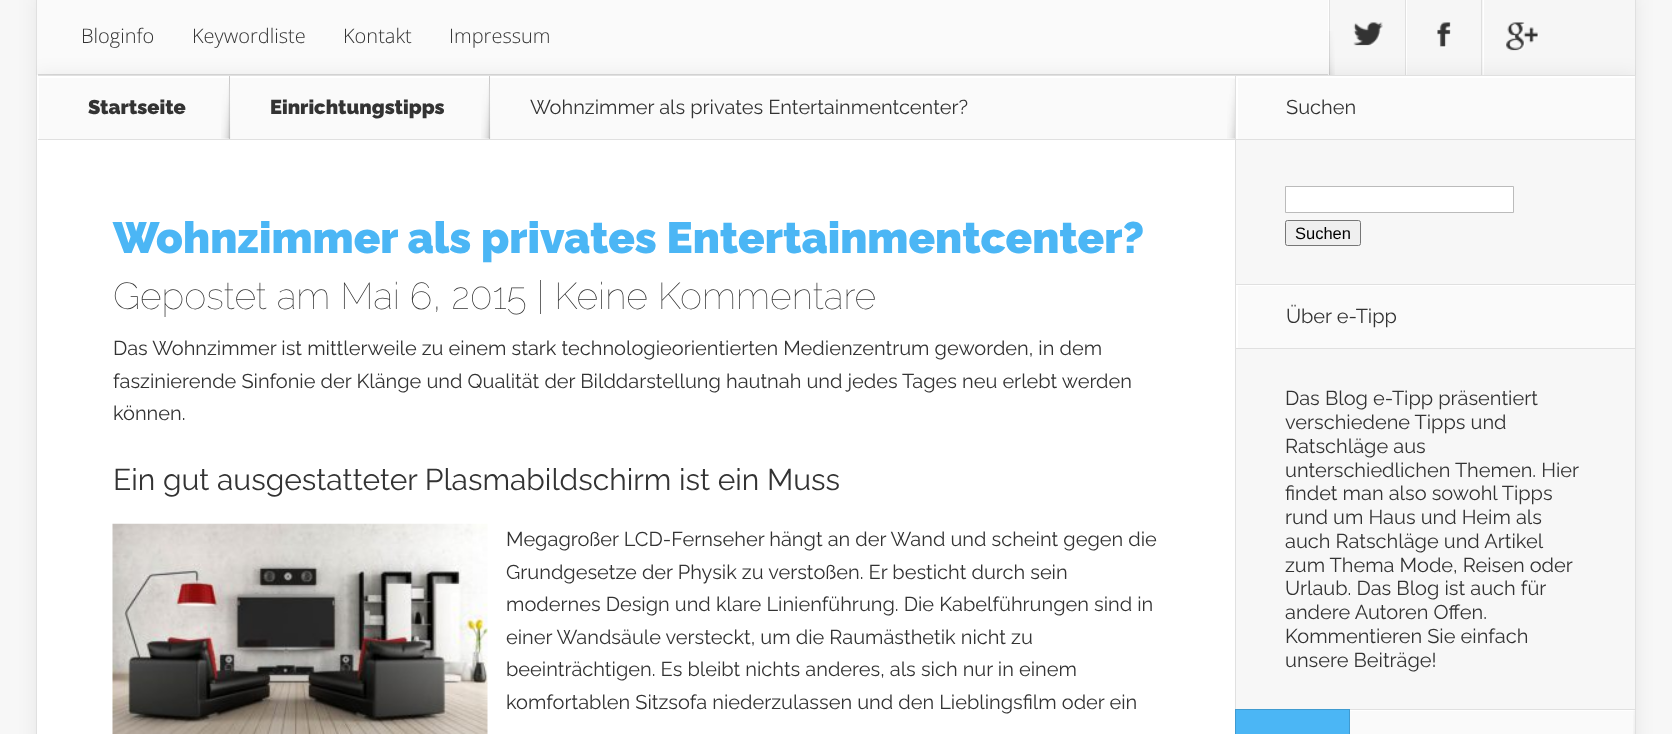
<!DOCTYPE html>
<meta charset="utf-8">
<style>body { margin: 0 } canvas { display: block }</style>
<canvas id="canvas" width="1672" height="734"></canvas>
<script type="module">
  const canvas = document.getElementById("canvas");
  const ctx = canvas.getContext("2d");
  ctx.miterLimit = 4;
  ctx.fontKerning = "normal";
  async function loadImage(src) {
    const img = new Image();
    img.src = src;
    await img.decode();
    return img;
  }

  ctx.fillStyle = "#f7f7f7";
  ctx.fillRect(0, 0, 1672, 734);
  ctx.fillStyle = "rgba(0, 0, 0, 0.07)";
  ctx.filter = "blur(9.5px)";
  ctx.beginPath();
  ctx.rect(36, -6, 1600, 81);
  ctx.fill();
  ctx.filter = "none";
  ctx.fillStyle = "#fafafa";
  ctx.fillRect(37, 0, 1291, 75);
  ctx.fillStyle = "#dadada";
  ctx.fillRect(38, 74, 1290, 1);
  ctx.fillStyle = "#e0e0e0";
  ctx.fillRect(1635, 0, 1, 75);
  ctx.fillRect(36, 0, 1, 75);
  ctx.font = "300 20px Open Sans";
  ctx.fillStyle = "#333333";
  ctx.fillText("Bloginfo", 81, 43);
  ctx.fillText("Keywordliste", 192, 43);
  ctx.fillText("Kontakt", 343, 43);
  ctx.fillText("Impressum", 449, 43);
  ctx.fillStyle = "#ffffff";
  ctx.fillRect(1328, 0, 1, 75);
  ctx.fillStyle = "#f6f6f6";
  ctx.fillRect(1330, 0, 305, 75);
  ctx.fillStyle = "#e0e0e0";
  ctx.fillRect(1329, 0, 1, 75);
  ctx.drawImage(await loadImage("img1.png"), 1353, 22, 30, 24);
  ctx.fillStyle = "#ffffff";
  ctx.fillRect(1406, 0, 1, 75);
  ctx.fillStyle = "#e0e0e0";
  ctx.fillRect(1405, 0, 1, 75);
  ctx.drawImage(await loadImage("img2.png"), 1437, 22, 14, 26);
  ctx.fillStyle = "#ffffff";
  ctx.fillRect(1483, 0, 1, 75);
  ctx.fillStyle = "#e0e0e0";
  ctx.fillRect(1481, 0, 1, 75);
  ctx.drawImage(await loadImage("img3.png"), 1506, 22, 33, 29);
  ctx.drawImage(await loadImage("img4.png"), 1328, 31, 7, 44);
  ctx.fillStyle = "rgba(0, 0, 0, 0.07)";
  ctx.filter = "blur(9.5px)";
  ctx.beginPath();
  ctx.rect(36, 75, 1600, 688);
  ctx.fill();
  ctx.filter = "none";
  ctx.fillStyle = "#ffffff";
  ctx.fillRect(37, 75, 1198, 659);
  ctx.fillStyle = "#e0e0e0";
  ctx.fillRect(1635, 75, 1, 659);
  ctx.fillRect(36, 75, 1, 659);
  ctx.fillStyle = "#fafafa";
  ctx.fillRect(39, 78, 1196, 61);
  ctx.fillStyle = "#e0e0e0";
  ctx.fillRect(38, 75, 1597, 1);
  ctx.fillRect(38, 139, 1597, 1);
  ctx.font = "900 20px Raleway";
  ctx.fillStyle = "#333333";
  ctx.fillText("Startseite", 88, 114);
  ctx.fillStyle = "#cac9c9";
  ctx.fillRect(229, 76, 1, 63);
  ctx.drawImage(await loadImage("img5.png"), 221, 84, 10, 55);
  ctx.fillStyle = "#333333";
  ctx.fillText("Einrichtungstipps", 270, 114);
  ctx.fillStyle = "#cac9c9";
  ctx.fillRect(489, 76, 1, 63);
  ctx.drawImage(await loadImage("img5.png"), 481, 84, 10, 55);
  ctx.font = "20px Raleway";
  ctx.fillStyle = "#333333";
  ctx.fillText("Wohnzimmer als privates Entertainmentcenter?", 530, 114);
  ctx.drawImage(await loadImage("img6.png"), 1227, 79, 8, 60);
  ctx.font = "900 43.75px Raleway";
  ctx.fillStyle = "#4bb6f5";
  ctx.fillText("Wohnzimmer als privates Entertainmentcenter?", 113, 253);
  ctx.font = "100 37.5px Raleway";
  ctx.fillStyle = "#333333";
  ctx.fillText("Gepostet am Mai 6, 2015 | Keine Kommentare", 113, 309);
  ctx.font = "20px Raleway";
  ctx.fillText("Das Wohnzimmer ist mittlerweile zu einem stark technologieorientierten Medienzentrum geworden, in dem", 113, 355);
  ctx.fillText("faszinierende Sinfonie der Klänge und Qualität der Bilddarstellung hautnah und jedes Tages neu erlebt werden", 113, 388);
  ctx.fillText("können.", 113, 420);
  ctx.font = "30px Raleway";
  ctx.fillText("Ein gut ausgestatteter Plasmabildschirm ist ein Muss", 113, 490);
  ctx.drawImage(await loadImage("img7.png"), 112, 523, 376, 211);
  ctx.font = "20px Raleway";
  ctx.fillText("Megagroßer LCD-Fernseher hängt an der Wand und scheint gegen die", 506, 546);
  ctx.fillText("Grundgesetze der Physik zu verstoßen. Er besticht durch sein", 506, 579);
  ctx.fillText("modernes Design und klare Linienführung. Die Kabelführungen sind in", 506, 611);
  ctx.fillText("einer Wandsäule versteckt, um die Raumästhetik nicht zu", 506, 644);
  ctx.fillText("beeinträchtigen. Es bleibt nichts anderes, als sich nur in einem", 506, 676);
  ctx.fillText("komfortablen Sitzsofa niederzulassen und den Lieblingsfilm oder ein", 506, 709);
  ctx.fillStyle = "#f7f7f7";
  ctx.fillRect(1236, 140, 399, 569);
  ctx.fillStyle = "#fafafa";
  ctx.fillRect(1238, 78, 397, 61);
  ctx.save();
  ctx.beginPath();
  ctx.rect(1236, 76, 399, 63);
  ctx.clip();
  ctx.fillStyle = "#ffffff";
  ctx.beginPath();
  ctx.moveTo(1112, -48);
  ctx.lineTo(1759, -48);
  ctx.lineTo(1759, 262);
  ctx.lineTo(1112, 262);
  ctx.closePath();
  ctx.moveTo(1238, 78);
  ctx.lineTo(1636, 78);
  ctx.lineTo(1636, 140);
  ctx.lineTo(1238, 140);
  ctx.closePath();
  ctx.fill("evenodd");
  ctx.restore();
  ctx.fillStyle = "#e0e0e0";
  ctx.fillRect(1235, 75, 1, 65);
  ctx.fillStyle = "#333333";
  ctx.fillText("Suchen", 1286, 114);
  ctx.fillStyle = "#ffffff";
  ctx.beginPath();
  ctx.rect(1285.5, 186.5, 228, 26);
  ctx.fill();
  ctx.strokeStyle = "#bbbbbb";
  ctx.stroke();
  ctx.fillStyle = "#efefef";
  ctx.beginPath();
  ctx.roundRect(1285.5, 220.5, 75, 25, 2);
  ctx.fill();
  ctx.strokeStyle = "#767676";
  ctx.stroke();
  ctx.font = "16.5px Liberation Sans";
  ctx.fillStyle = "#000000";
  ctx.fillText("Suchen", 1295, 239);
  ctx.fillStyle = "#fafafa";
  ctx.fillRect(1238, 286, 397, 62);
  ctx.save();
  ctx.beginPath();
  ctx.rect(1236, 285, 399, 63);
  ctx.clip();
  ctx.fillStyle = "#ffffff";
  ctx.beginPath();
  ctx.moveTo(1112, 161);
  ctx.lineTo(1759, 161);
  ctx.lineTo(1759, 471);
  ctx.lineTo(1112, 471);
  ctx.closePath();
  ctx.moveTo(1238, 286);
  ctx.lineTo(1636, 286);
  ctx.lineTo(1636, 349);
  ctx.lineTo(1238, 349);
  ctx.closePath();
  ctx.fill("evenodd");
  ctx.restore();
  ctx.fillStyle = "#e0e0e0";
  ctx.fillRect(1235, 140, 1, 569);
  ctx.fillRect(1235, 284, 400, 1);
  ctx.fillRect(1235, 348, 400, 1);
  ctx.font = "20px Raleway";
  ctx.fillStyle = "#333333";
  ctx.fillText("Über e-Tipp", 1286, 323);
  ctx.fillText("Das Blog e-Tipp präsentiert", 1285, 405);
  ctx.fillText("verschiedene Tipps und", 1285, 429);
  ctx.fillText("Ratschläge aus", 1285, 453);
  ctx.fillText("unterschiedlichen Themen. Hier", 1285, 477);
  ctx.fillText("findet man also sowohl Tipps", 1285, 500);
  ctx.fillText("rund um Haus und Heim als", 1285, 524);
  ctx.fillText("auch Ratschläge und Artikel", 1285, 548);
  ctx.fillText("zum Thema Mode, Reisen oder", 1285, 572);
  ctx.fillText("Urlaub. Das Blog ist auch für", 1285, 595);
  ctx.fillText("andere Autoren Offen.", 1285, 619);
  ctx.fillText("Kommentieren Sie einfach", 1285, 643);
  ctx.fillText("unsere Beiträge!", 1285, 667);
  ctx.fillStyle = "#fafafa";
  ctx.fillRect(1350, 711, 285, 23);
  ctx.save();
  ctx.beginPath();
  ctx.rect(1235, 710, 400, 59);
  ctx.clip();
  ctx.fillStyle = "#ffffff";
  ctx.beginPath();
  ctx.moveTo(1111, 586);
  ctx.lineTo(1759, 586);
  ctx.lineTo(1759, 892);
  ctx.lineTo(1111, 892);
  ctx.closePath();
  ctx.moveTo(1236, 711);
  ctx.lineTo(1636, 711);
  ctx.lineTo(1636, 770);
  ctx.lineTo(1236, 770);
  ctx.closePath();
  ctx.fill("evenodd");
  ctx.restore();
  ctx.fillStyle = "#e0e0e0";
  ctx.fillRect(1350, 709, 285, 1);
  ctx.fillStyle = "#4bb6f5";
  ctx.fillRect(1235, 709, 115, 25);
  ctx.fillStyle = "#409bd0";
  ctx.beginPath();
  ctx.moveTo(1235, 709);
  ctx.lineTo(1350, 709);
  ctx.lineTo(1349, 710);
  ctx.lineTo(1236, 710);
  ctx.closePath();
  ctx.fill();
  ctx.fillStyle = "rgba(0, 0, 0, 0.15)";
  ctx.beginPath();
  ctx.moveTo(1350, 709);
  ctx.lineTo(1350, 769);
  ctx.lineTo(1349, 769);
  ctx.lineTo(1349, 710);
  ctx.closePath();
  ctx.fill();
  ctx.beginPath();
  ctx.moveTo(1235, 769);
  ctx.lineTo(1235, 709);
  ctx.lineTo(1236, 710);
  ctx.lineTo(1236, 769);
  ctx.closePath();
  ctx.fill();
  ctx.drawImage(await loadImage("img8.png"), 1633, 710, 2, 24);
</script>
